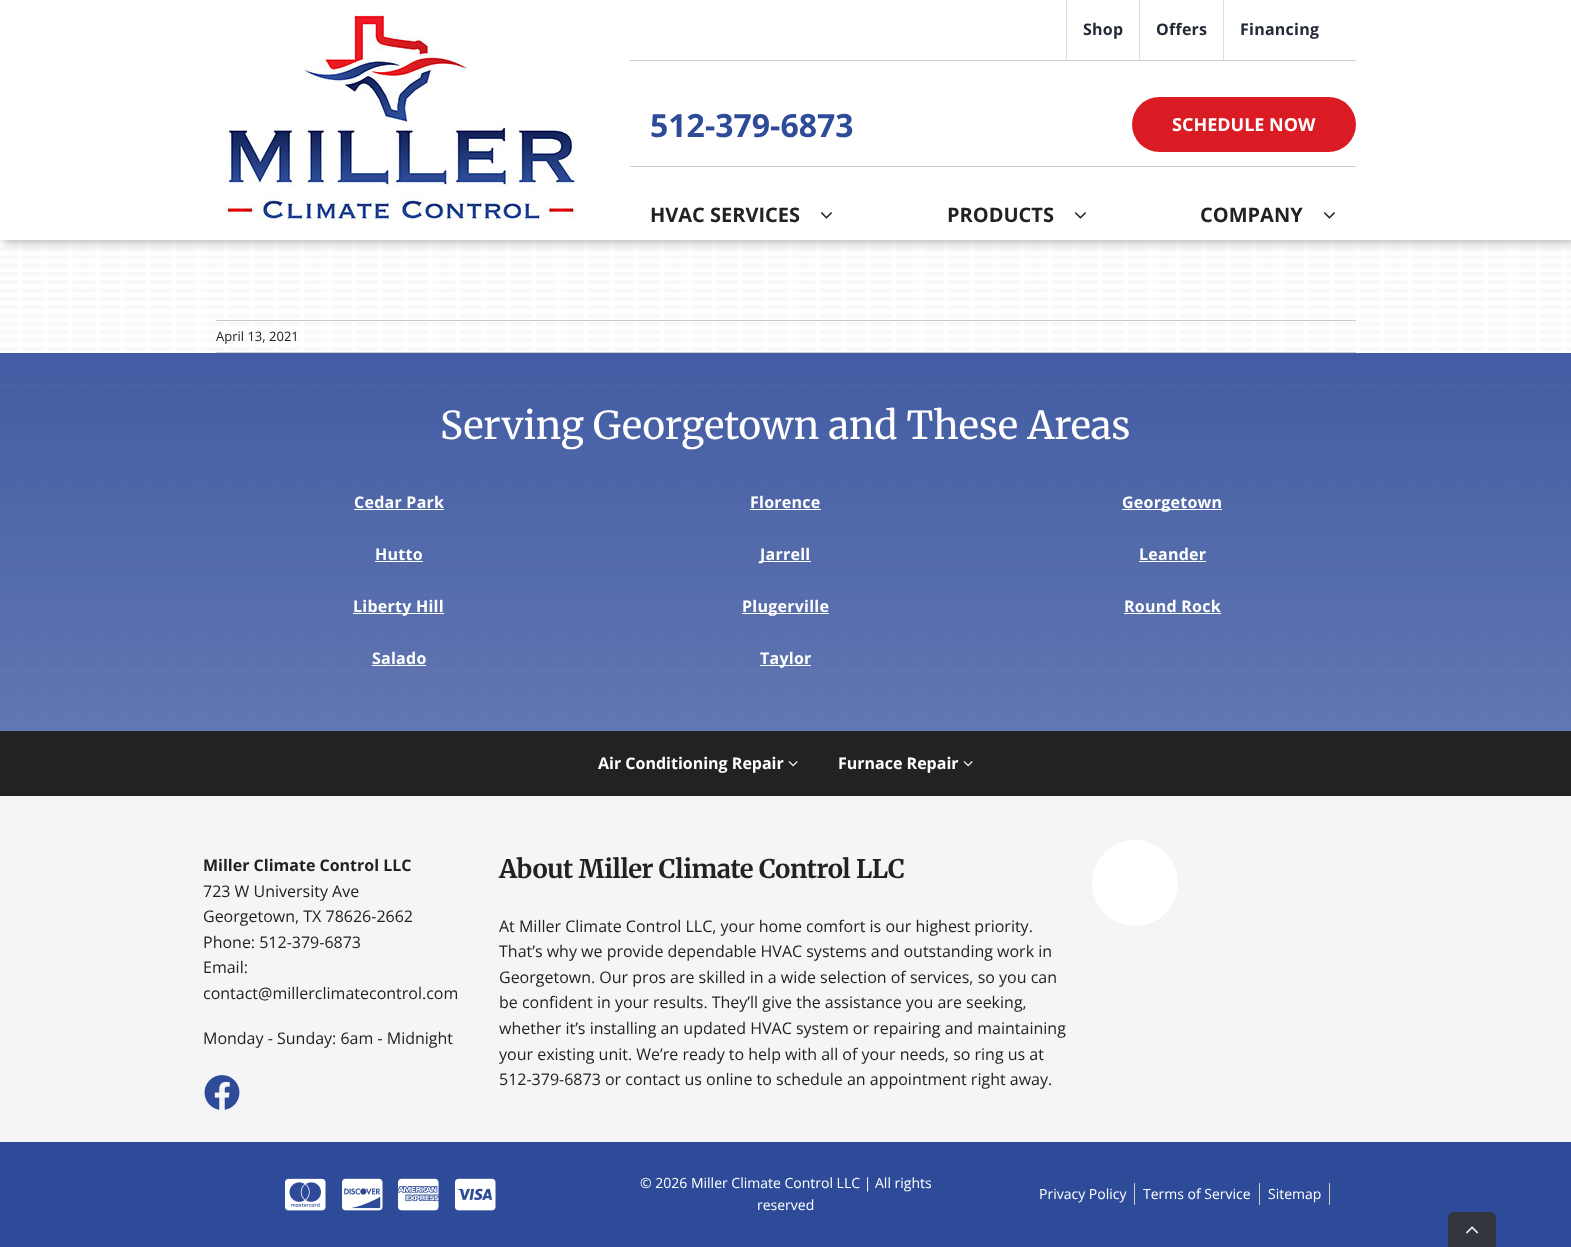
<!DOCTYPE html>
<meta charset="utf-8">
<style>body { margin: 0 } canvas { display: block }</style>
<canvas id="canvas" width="1571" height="1247"></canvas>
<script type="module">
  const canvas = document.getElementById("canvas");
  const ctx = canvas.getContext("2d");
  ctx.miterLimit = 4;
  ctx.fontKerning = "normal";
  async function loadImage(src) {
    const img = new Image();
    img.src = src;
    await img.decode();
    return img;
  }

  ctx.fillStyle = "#ffffff";
  ctx.fillRect(0, 0, 1571, 1247);
  ctx.drawImage(await loadImage("img1.png"), 0, 240, 1571, 491);
  ctx.fillStyle = "rgba(33, 33, 33, 0.25)";
  ctx.filter = "blur(4px)";
  ctx.beginPath();
  ctx.rect(4, 4, 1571, 240);
  ctx.fill();
  ctx.filter = "none";
  ctx.fillStyle = "#ffffff";
  ctx.fillRect(0, 0, 1571, 240);
  ctx.drawImage(await loadImage("img2.png"), 225, 10, 350, 216);
  ctx.fillStyle = "#cccccc";
  ctx.fillRect(630, 60, 726, 1);
  ctx.fillStyle = "#dbdbdb";
  ctx.fillRect(1066, 0, 1, 60);
  ctx.letterSpacing = "0.25px";
  ctx.font = "bold 16px Open Sans";
  ctx.fillStyle = "#212934";
  ctx.fillText("Shop", 1083, 35);
  ctx.fillStyle = "#dbdbdb";
  ctx.fillRect(1139, 0, 1, 60);
  ctx.fillStyle = "#212934";
  ctx.fillText("Offers", 1156, 35);
  ctx.fillStyle = "#dbdbdb";
  ctx.fillRect(1223, 0, 1, 60);
  ctx.fillStyle = "#212934";
  ctx.fillText("Financing", 1240, 35);
  ctx.fillStyle = "#cccccc";
  ctx.fillRect(630, 166, 726, 1);
  ctx.letterSpacing = "0px";
  ctx.font = "bold 32px Open Sans";
  ctx.fillStyle = "#2e4b99";
  ctx.fillText("512-379-6873", 650, 137);
  ctx.fillStyle = "#db1b24";
  ctx.beginPath();
  ctx.roundRect(1132, 97, 224, 55, 27.5);
  ctx.fill();
  ctx.font = "bold 18px Open Sans";
  ctx.fillStyle = "#ffffff";
  ctx.fillText("SCHEDULE NOW", 1172, 131);
  ctx.font = "bold 20px Open Sans";
  ctx.fillStyle = "#222222";
  ctx.fillText("HVAC SERVICES", 650, 222);
  ctx.drawImage(await loadImage("img3.png"), 820, 212, 12, 7);
  ctx.fillText("PRODUCTS", 947, 222);
  ctx.drawImage(await loadImage("img3.png"), 1074, 212, 12, 7);
  ctx.fillText("COMPANY", 1200, 222);
  ctx.drawImage(await loadImage("img3.png"), 1323, 212, 12, 7);
  ctx.fillStyle = "#cccccc";
  ctx.fillRect(216, 320, 1140, 1);
  ctx.fillRect(216, 352, 1140, 1);
  ctx.font = "13px Open Sans";
  ctx.fillStyle = "#222222";
  ctx.fillText("April 13, 2021", 216, 341);
  ctx.font = "38.4px Merriweather";
  ctx.fillStyle = "#ffffff";
  ctx.fillText("Serving Georgetown and These Areas", 440, 439);
  ctx.letterSpacing = "0.25px";
  ctx.font = "bold 16px Open Sans";
  ctx.fillText("Cedar Park", 354, 508);
  ctx.fillRect(354, 509, 90, 1);
  ctx.fillText("Florence", 750, 508);
  ctx.fillRect(750, 509, 71, 1);
  ctx.fillRect(1122, 509, 100, 1);
  ctx.fillText("Georgetown", 1122, 508);
  ctx.fillText("Hutto", 375, 560);
  ctx.fillRect(375, 561, 48, 1);
  ctx.fillRect(760, 561, 51, 1);
  ctx.fillText("Jarrell", 760, 560);
  ctx.fillText("Leander", 1139, 560);
  ctx.fillRect(1139, 561, 67, 1);
  ctx.fillRect(353, 613, 91, 1);
  ctx.fillText("Liberty Hill", 353, 612);
  ctx.fillRect(742, 613, 87, 1);
  ctx.fillText("Plugerville", 742, 612);
  ctx.fillText("Round Rock", 1124, 612);
  ctx.fillRect(1124, 613, 97, 1);
  ctx.fillText("Salado", 372, 664);
  ctx.fillRect(372, 665, 54, 1);
  ctx.fillRect(760, 665, 51, 1);
  ctx.fillText("Taylor", 760, 664);
  ctx.fillStyle = "#222222";
  ctx.fillRect(0, 731, 1571, 65);
  ctx.letterSpacing = "0px";
  ctx.fillStyle = "#ffffff";
  ctx.fillText("Air Conditioning Repair", 598, 769);
  ctx.drawImage(await loadImage("img4.png"), 788, 761, 10, 6);
  ctx.fillText("Furnace Repair", 838, 769);
  ctx.drawImage(await loadImage("img4.png"), 963, 761, 10, 6);
  ctx.fillStyle = "#f5f5f5";
  ctx.fillRect(0, 796, 1571, 346);
  ctx.fillStyle = "#222222";
  ctx.fillText("Miller Climate Control LLC", 203, 871);
  ctx.font = "16px Open Sans";
  ctx.fillText("723 W University Ave", 203, 897);
  ctx.fillText("Georgetown, TX 78626-2662", 203, 922);
  ctx.fillText("Phone: 512-379-6873", 203, 948);
  ctx.fillText("Email:", 203, 973);
  ctx.fillText("contact@millerclimatecontrol.com", 203, 999);
  ctx.fillText("Monday - Sunday: 6am - Midnight", 203, 1044);
  ctx.drawImage(await loadImage("img5.png"), 204, 1075, 36, 35);
  ctx.letterSpacing = "-0.4px";
  ctx.font = "bold 25.6px Merriweather";
  ctx.fillText("About Miller Climate Control LLC", 499, 878);
  ctx.letterSpacing = "0px";
  ctx.font = "16px Open Sans";
  ctx.fillText("At Miller Climate Control LLC, your home comfort is our highest priority.", 499, 932);
  ctx.fillText("That’s why we provide dependable HVAC systems and outstanding work in", 499, 957);
  ctx.fillText("Georgetown. Our pros are skilled in a wide selection of services, so you can", 499, 983);
  ctx.fillText("be confident in your results. They’ll give the assistance you are seeking,", 499, 1008);
  ctx.fillText("whether it’s installing an updated HVAC system or repairing and maintaining", 499, 1034);
  ctx.fillText("your existing unit. We’re ready to help with all of your needs, so ring us at", 499, 1060);
  ctx.fillText("512-379-6873 or contact us online to schedule an appointment right away.", 499, 1085);
  ctx.fillStyle = "#ffffff";
  ctx.beginPath();
  ctx.arc(1135, 883, 43, 0, Math.PI * 2);
  ctx.fill();
  ctx.fillStyle = "#2e4b99";
  ctx.fillRect(0, 1142, 1571, 105);
  ctx.drawImage(await loadImage("img6.png"), 285, 1178, 41, 33);
  ctx.drawImage(await loadImage("img7.png"), 342, 1178, 41, 33);
  ctx.drawImage(await loadImage("img8.png"), 398, 1178, 41, 33);
  ctx.drawImage(await loadImage("img9.png"), 455, 1178, 41, 33);
  ctx.font = "14px Open Sans";
  ctx.fillStyle = "#ffffff";
  ctx.fillText("© 2026 Miller Climate Control LLC | All rights", 640, 1188);
  ctx.fillText("reserved", 757, 1210);
  ctx.fillText("Privacy Policy", 1039, 1199);
  ctx.fillStyle = "#cccccc";
  ctx.fillRect(1134, 1183, 1, 22);
  ctx.fillStyle = "#ffffff";
  ctx.fillText("Terms of Service", 1143, 1199);
  ctx.fillStyle = "#cccccc";
  ctx.fillRect(1259, 1183, 1, 22);
  ctx.fillStyle = "#ffffff";
  ctx.fillText("Sitemap", 1268, 1199);
  ctx.fillStyle = "#cccccc";
  ctx.fillRect(1329, 1183, 1, 22);
  ctx.fillStyle = "#33353d";
  ctx.beginPath();
  ctx.roundRect(1448, 1212, 48, 35, [6, 6, 0, 0]);
  ctx.fill();
  ctx.drawImage(await loadImage("img10.png"), 1466, 1226, 13, 8);
</script>
